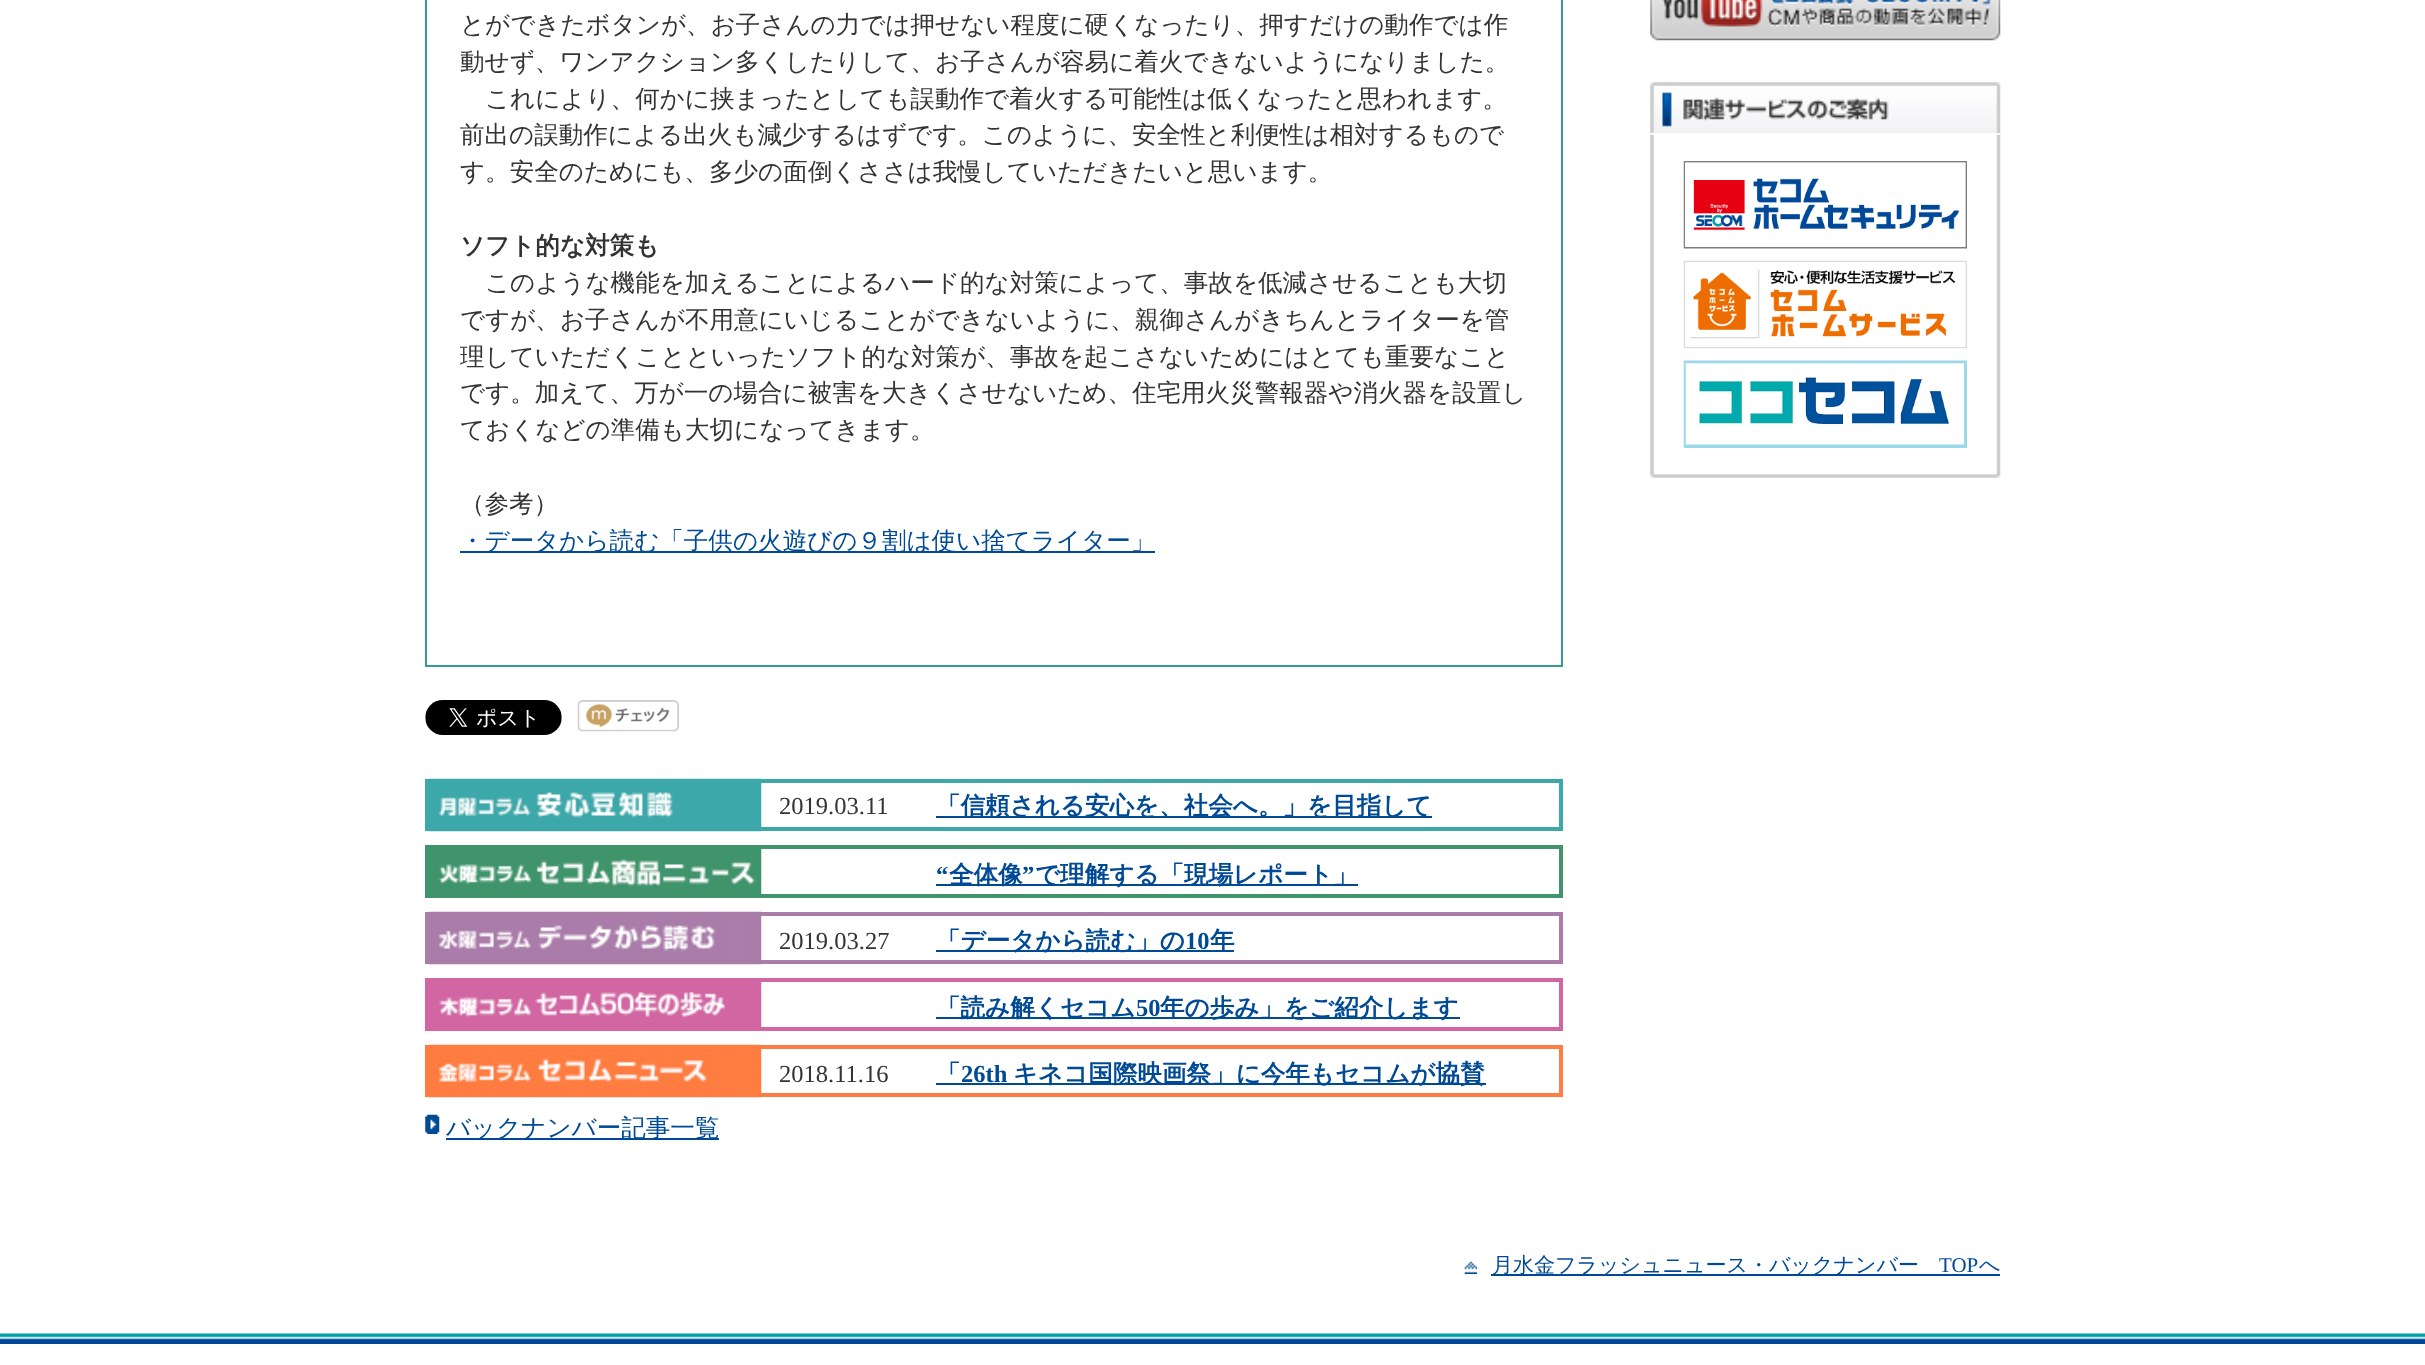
<!DOCTYPE html>
<meta charset="utf-8">
<style>body { margin: 0 } canvas { display: block }</style>
<canvas id="canvas" width="2425" height="1365"></canvas>
<script type="module">
  const canvas = document.getElementById("canvas");
  const ctx = canvas.getContext("2d");
  ctx.miterLimit = 4;
  ctx.fontKerning = "normal";
  async function loadImage(src) {
    const img = new Image();
    img.src = src;
    await img.decode();
    return img;
  }

  ctx.fillStyle = "#ffffff";
  ctx.fillRect(0, 0, 2425, 1365);
  ctx.fillStyle = "#339999";
  ctx.fillRect(1561, 0, 2, 667);
  ctx.fillRect(425, 665, 1138, 2);
  ctx.fillRect(425, 0, 2, 667);
  ctx.font = "500 24.55px WenQuanYi Zen Hei";
  ctx.fillStyle = "#333333";
  ctx.fillText("とができたボタンが、お子さんの力では押せない程度に硬くなったり、押すだけの動作では作", 460, 33);
  ctx.fillText("動せず、ワンアクション多くしたりして、お子さんが容易に着火できないようになりました。", 460, 70);
  ctx.fillText("これにより、何かに挟まったとしても誤動作で着火する可能性は低くなったと思われます。", 485, 107);
  ctx.fillText("前出の誤動作による出火も減少するはずです。このように、安全性と利便性は相対するもので", 460, 143);
  ctx.fillText("す。安全のためにも、多少の面倒くささは我慢していただきたいと思います。", 460, 180);
  ctx.font = "bold 24.55px WenQuanYi Zen Hei";
  ctx.fillText("ソフト的な対策も", 460, 254);
  ctx.font = "500 24.55px WenQuanYi Zen Hei";
  ctx.fillText("このような機能を加えることによるハード的な対策によって、事故を低減させることも大切", 485, 291);
  ctx.fillText("ですが、お子さんが不用意にいじることができないように、親御さんがきちんとライターを管", 460, 328);
  ctx.fillText("理していただくことといったソフト的な対策が、事故を起こさないためにはとても重要なこと", 460, 365);
  ctx.fillText("です。加えて、万が一の場合に被害を大きくさせないため、住宅用火災警報器や消火器を設置し", 460, 401);
  ctx.fillText("ておくなどの準備も大切になってきます。", 460, 438);
  ctx.fillText("（参考）", 460, 512);
  ctx.fillStyle = "#004a95";
  ctx.fillRect(460, 551, 695, 2);
  ctx.fillText("・データから読む「子供の火遊びの９割は使い捨てライター」", 460, 549);
  ctx.drawImage(await loadImage("img1.png"), 425, 700, 137, 35);
  ctx.drawImage(await loadImage("img2.png"), 577, 700, 102, 32);
  ctx.drawImage(await loadImage("img3.png"), 428, 778, 334, 54);
  ctx.strokeStyle = "#3da8a9";
  ctx.lineWidth = 4;
  ctx.strokeRect(427, 781, 1134, 48);
  ctx.font = "24.55px Liberation Serif";
  ctx.fillStyle = "#333333";
  ctx.fillText("2019.03.11", 779, 814);
  ctx.fillStyle = "#004a95";
  ctx.fillRect(936, 816, 496, 2);
  ctx.font = "bold 24.55px WenQuanYi Zen Hei";
  ctx.fillText("「信頼される安心を、社会へ。」を目指して", 936, 814);
  ctx.drawImage(await loadImage("img4.png"), 429, 849, 333, 45);
  ctx.strokeStyle = "#40946b";
  ctx.strokeRect(427, 847, 1134, 49);
  ctx.font = "bold 24.55px Liberation Serif";
  ctx.fillText("“", 936, 883);
  ctx.fillRect(936, 884, 422, 2);
  ctx.font = "bold 24.55px WenQuanYi Zen Hei";
  ctx.fillText("全体像", 949, 883);
  ctx.font = "bold 24.55px Liberation Serif";
  ctx.fillText("”", 1022, 883);
  ctx.font = "bold 24.55px WenQuanYi Zen Hei";
  ctx.fillText("で理解する「現場レポート」", 1035, 883);
  ctx.drawImage(await loadImage("img5.png"), 428, 911, 334, 54);
  ctx.strokeStyle = "#aa7ca9";
  ctx.strokeRect(427, 914, 1134, 48);
  ctx.font = "24.55px Liberation Serif";
  ctx.fillStyle = "#333333";
  ctx.fillText("2019.03.27", 779, 949);
  ctx.fillStyle = "#004a95";
  ctx.fillRect(936, 950, 298, 2);
  ctx.font = "bold 24.55px WenQuanYi Zen Hei";
  ctx.fillText("「データから読む」の", 936, 949);
  ctx.font = "bold 24.55px Liberation Serif";
  ctx.fillText("10", 1185, 949);
  ctx.font = "bold 24.55px WenQuanYi Zen Hei";
  ctx.fillText("年", 1210, 949);
  ctx.drawImage(await loadImage("img6.png"), 429, 982, 333, 45);
  ctx.strokeStyle = "#d166a2";
  ctx.strokeRect(427, 980, 1134, 49);
  ctx.fillRect(936, 1017, 524, 2);
  ctx.fillText("「読み解くセコム", 936, 1016);
  ctx.font = "bold 24.55px Liberation Serif";
  ctx.fillText("50", 1136, 1016);
  ctx.font = "bold 24.55px WenQuanYi Zen Hei";
  ctx.fillText("年の歩み」をご紹介します", 1160, 1016);
  ctx.drawImage(await loadImage("img7.png"), 428, 1044, 334, 54);
  ctx.strokeStyle = "#ff7d41";
  ctx.strokeRect(427, 1047, 1134, 48);
  ctx.font = "24.55px Liberation Serif";
  ctx.fillStyle = "#333333";
  ctx.fillText("2018.11.16", 779, 1082);
  ctx.font = "bold 24.55px WenQuanYi Zen Hei";
  ctx.fillStyle = "#004a95";
  ctx.fillText("「", 936, 1082);
  ctx.font = "bold 24.55px Liberation Serif";
  ctx.fillText("26th", 961, 1082);
  ctx.fillRect(936, 1083, 550, 2);
  ctx.font = "bold 24.55px WenQuanYi Zen Hei";
  ctx.fillText("キネコ国際映画祭」に今年もセコムが協賛", 1013, 1082);
  ctx.drawImage(await loadImage("img8.png"), 425, 1114, 15, 20);
  ctx.fillRect(446, 1138, 273, 2);
  ctx.font = "500 24.55px WenQuanYi Zen Hei";
  ctx.fillText("バックナンバー記事一覧", 446, 1136);
  ctx.drawImage(await loadImage("img9.png"), 1650, 0, 351, 41);
  ctx.drawImage(await loadImage("img10.png"), 1650, 82, 351, 51);
  ctx.drawImage(await loadImage("img11.png"), 1650, 134, 351, 344);
  ctx.drawImage(await loadImage("img12.png"), 1683, 161, 284, 88);
  ctx.drawImage(await loadImage("img13.png"), 1683, 260, 284, 89);
  ctx.drawImage(await loadImage("img14.png"), 1683, 360, 284, 88);
  ctx.drawImage(await loadImage("img15.png"), 1464, 1261, 13, 13);
  ctx.fillRect(1491, 1274, 509, 2);
  ctx.font = "500 21px WenQuanYi Zen Hei";
  ctx.fillText("月水金フラッシュニュース・バックナンバー", 1492, 1272);
  ctx.font = "21px Liberation Serif";
  ctx.fillText("TOP", 1939, 1272);
  ctx.font = "500 21px WenQuanYi Zen Hei";
  ctx.fillText("へ", 1979, 1272);
  ctx.drawImage(await loadImage("img16.png"), 0, 1333, 2425, 11);
</script>
